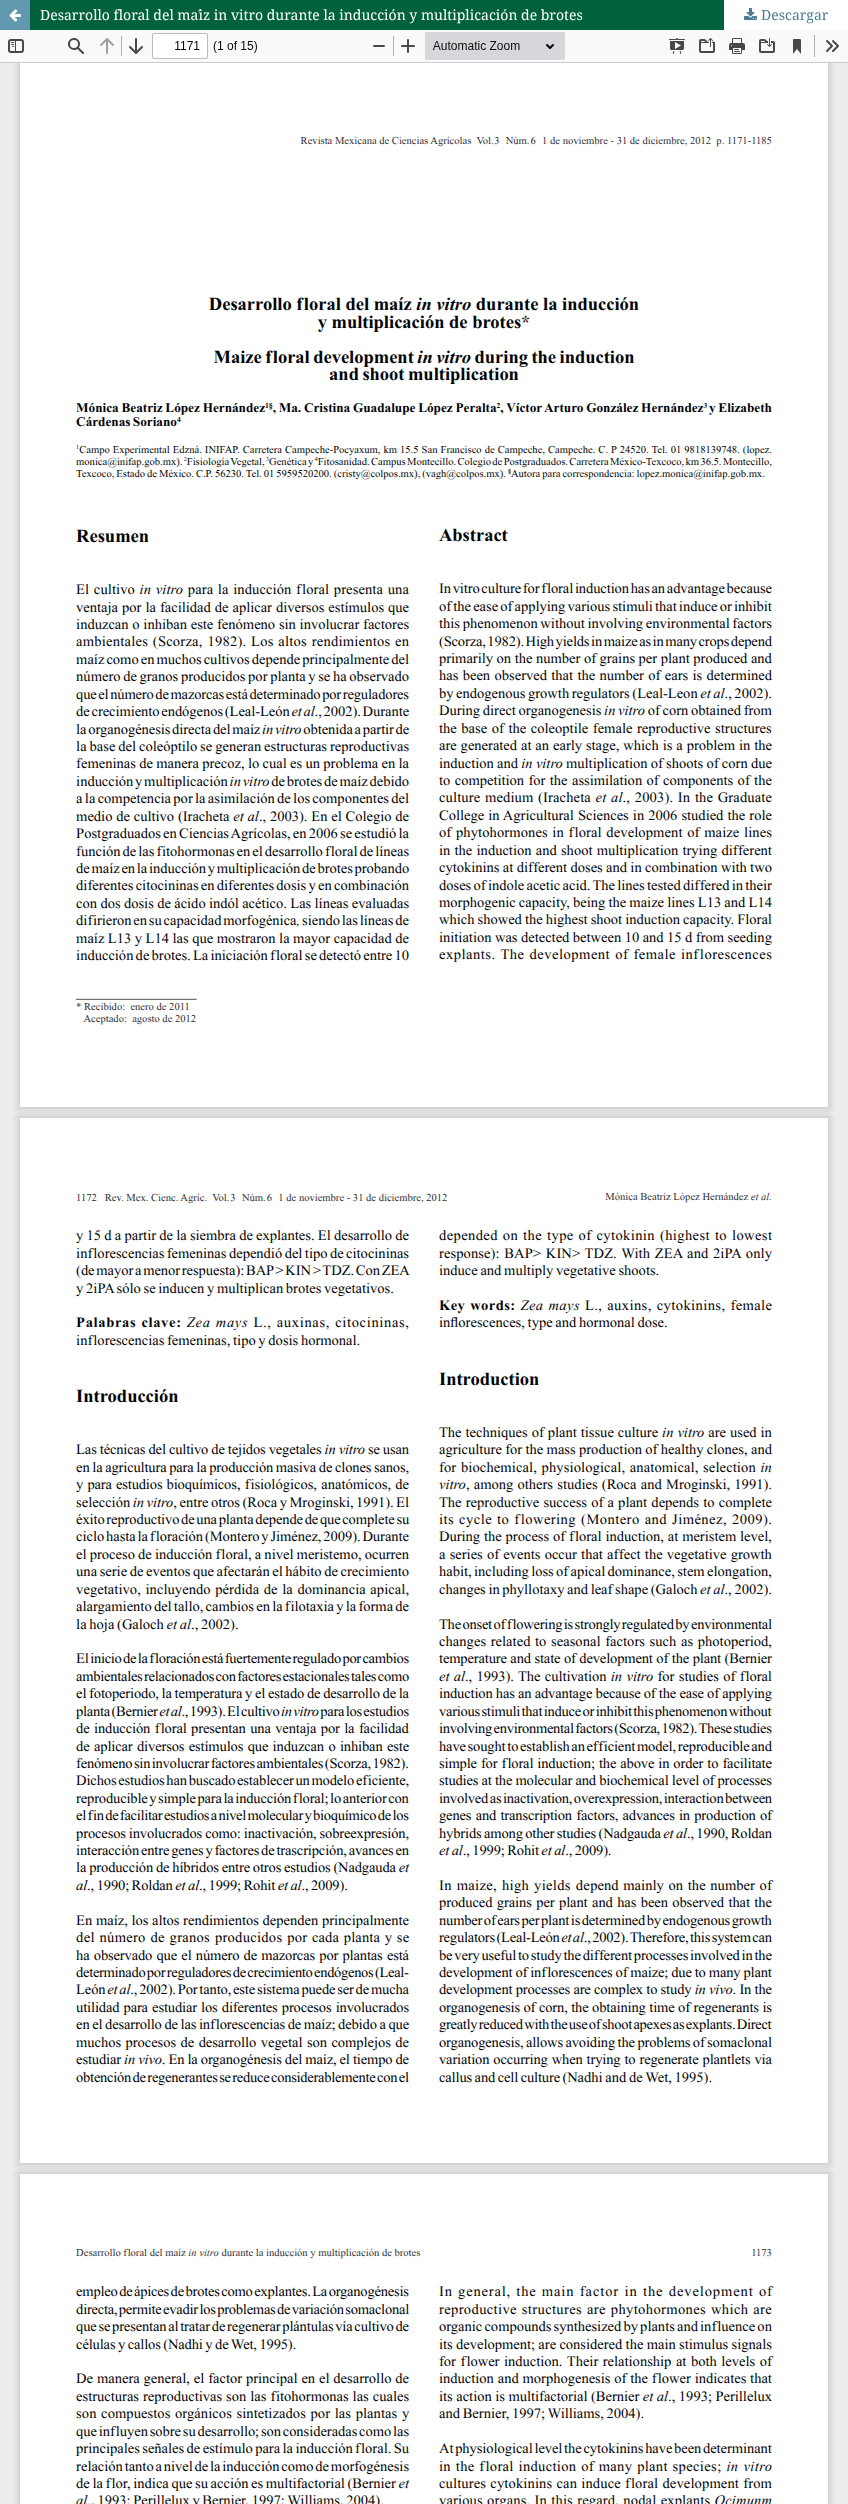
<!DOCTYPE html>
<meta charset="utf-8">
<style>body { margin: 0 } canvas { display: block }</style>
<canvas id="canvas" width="848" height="2504"></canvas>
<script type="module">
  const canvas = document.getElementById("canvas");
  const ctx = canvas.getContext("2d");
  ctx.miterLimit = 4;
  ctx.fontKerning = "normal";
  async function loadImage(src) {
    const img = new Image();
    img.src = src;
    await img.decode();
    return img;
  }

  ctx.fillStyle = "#ffffff";
  ctx.fillRect(0, 0, 848, 2504);
  ctx.fillStyle = "#00623c";
  ctx.fillRect(30, 0, 694, 30);
  ctx.fillStyle = "#6298ae";
  ctx.fillRect(0, 0, 30, 30);
  ctx.drawImage(await loadImage("img1.png"), 9, 9, 12, 13);
  ctx.font = "14px Noto Serif";
  ctx.fillStyle = "#ffffff";
  ctx.fillText("Desarrollo floral del maíz in vitro durante la inducción y multiplicación de brotes", 40, 20);
  ctx.drawImage(await loadImage("img2.png"), 744, 8, 13, 12);
  ctx.fillStyle = "#4b7d92";
  ctx.fillText("Descargar", 761, 20);
  ctx.drawImage(await loadImage("img3.png"), 0, 30, 848, 2474);
</script>
